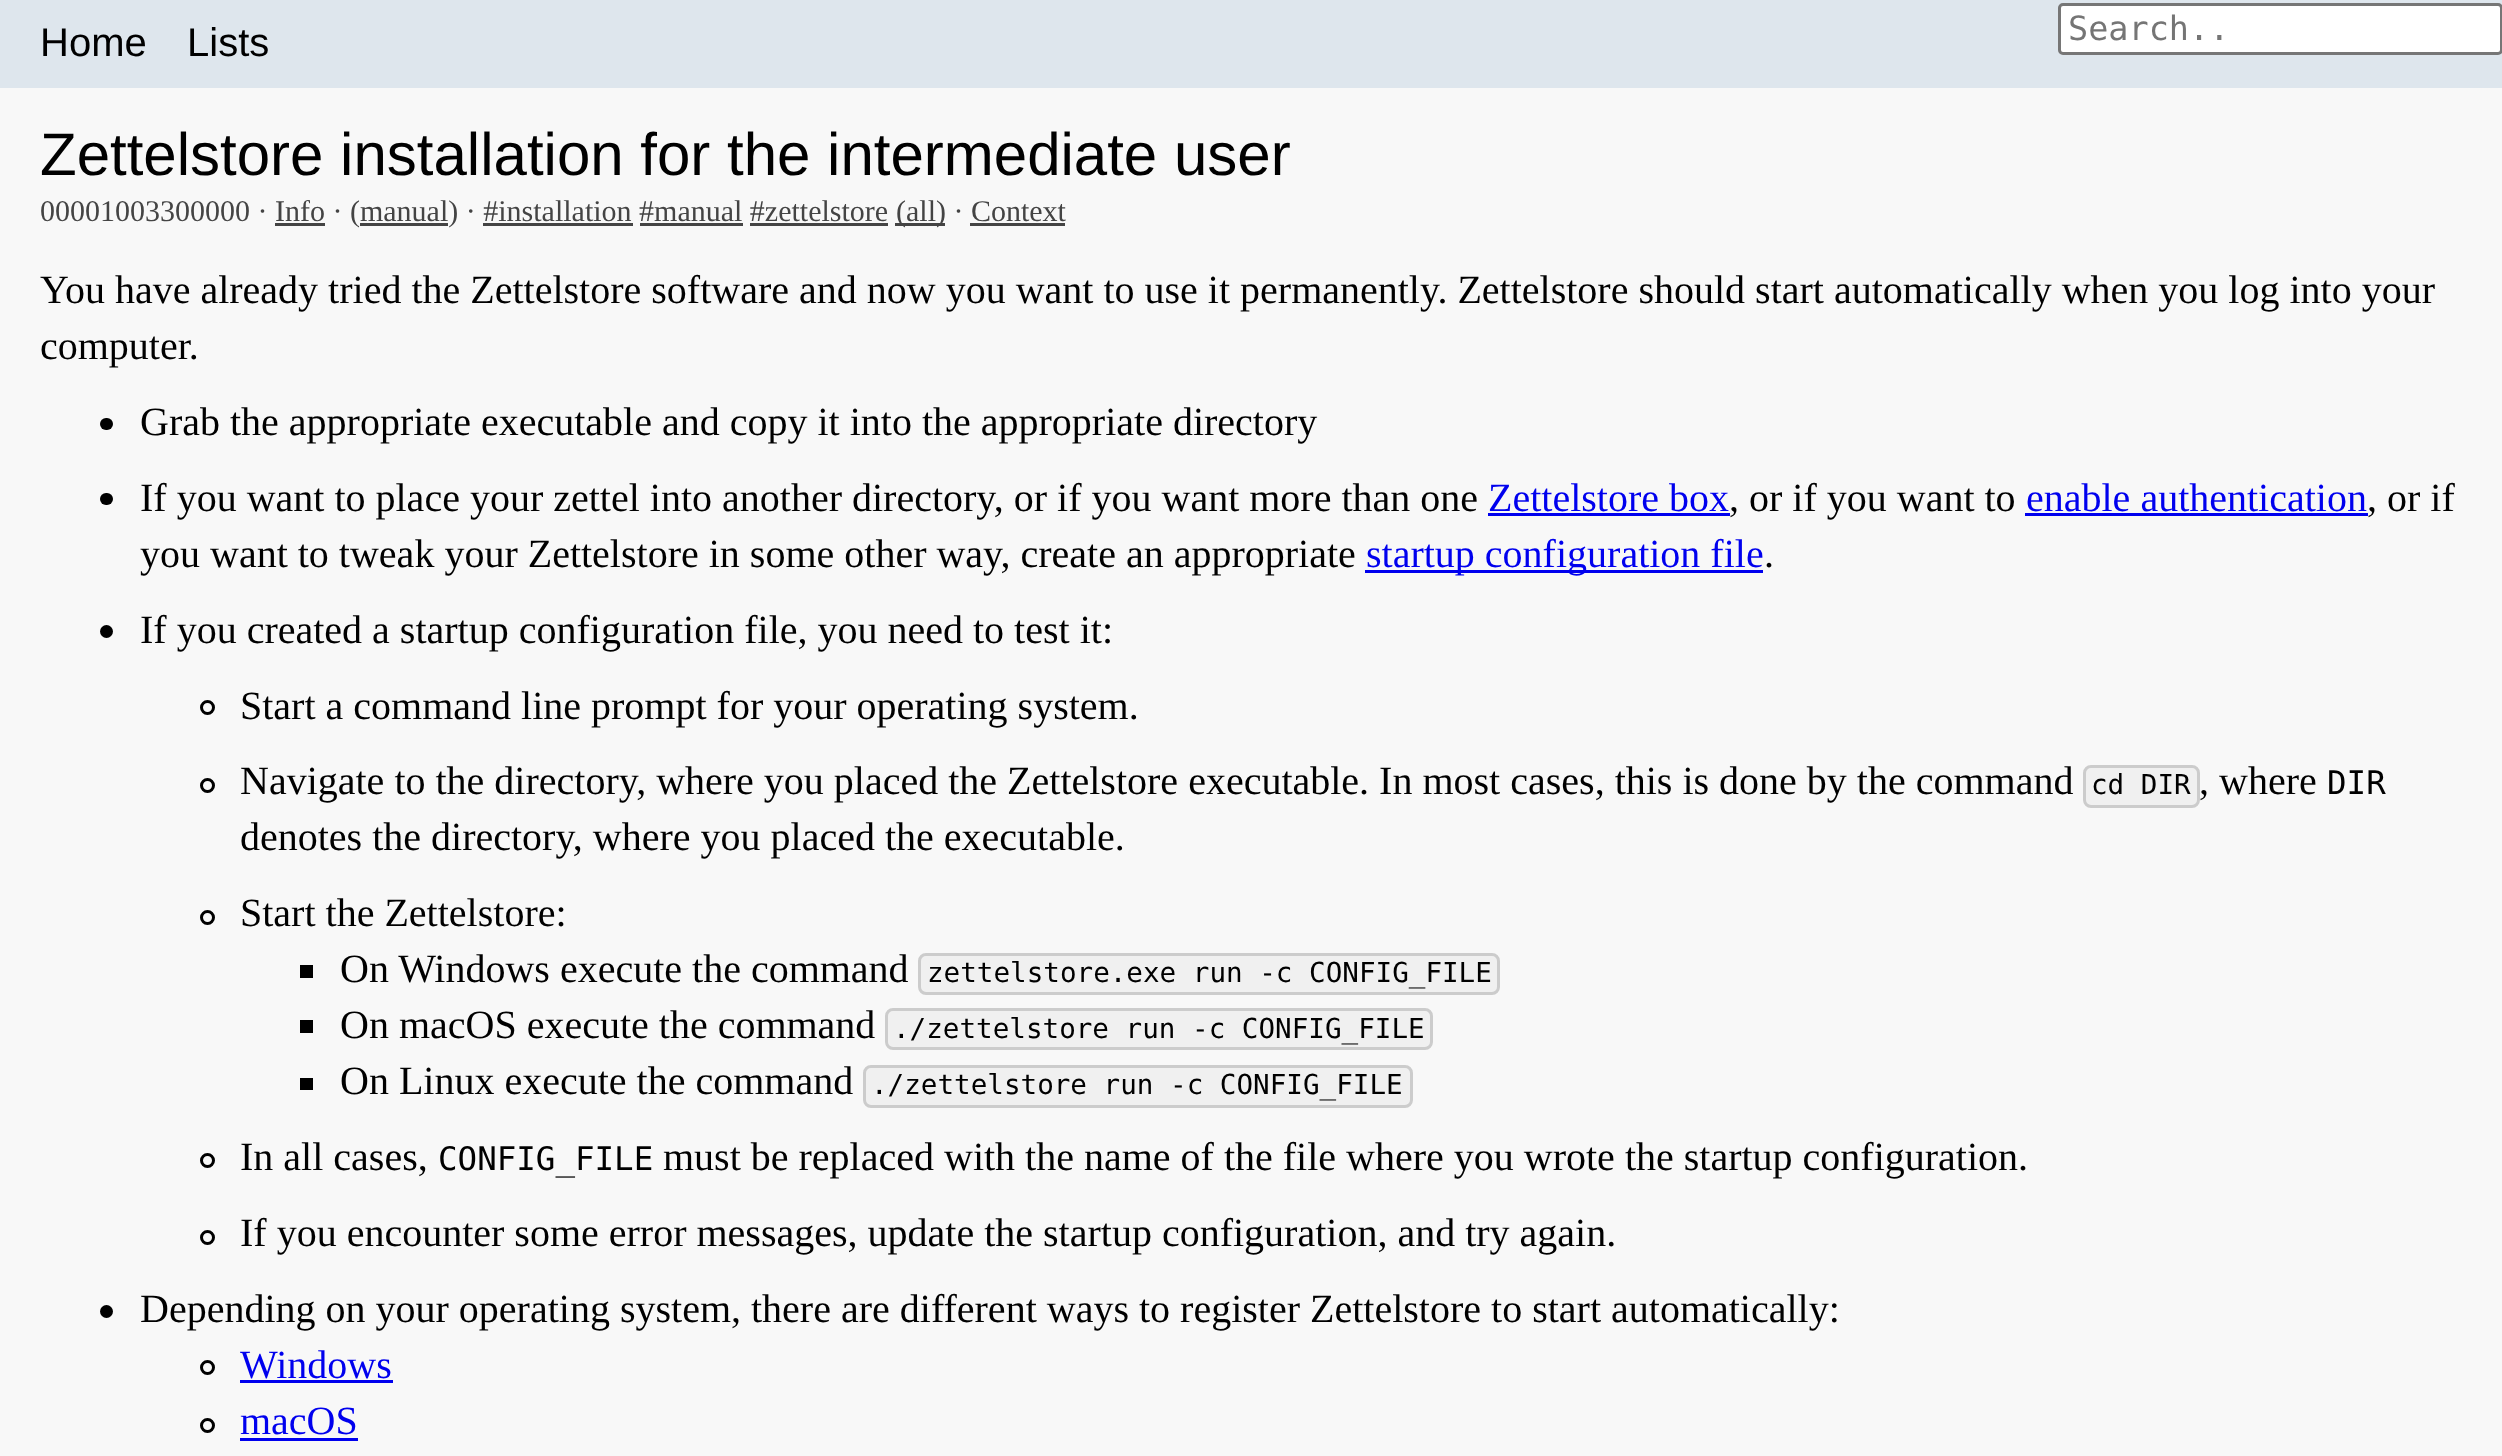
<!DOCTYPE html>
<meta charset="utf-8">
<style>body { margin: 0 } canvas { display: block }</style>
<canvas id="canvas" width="2502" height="1456"></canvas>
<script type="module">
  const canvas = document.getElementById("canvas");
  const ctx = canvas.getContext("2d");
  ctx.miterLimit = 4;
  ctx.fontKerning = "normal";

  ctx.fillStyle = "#f8f8f8";
  ctx.fillRect(0, 0, 2502, 1456);
  ctx.fillStyle = "#dee6ed";
  ctx.fillRect(0, 0, 2502, 88);
  ctx.font = "40px Liberation Sans";
  ctx.fillStyle = "#000000";
  ctx.fillText("Home", 40, 56);
  ctx.fillText("Lists", 187, 56);
  ctx.fillStyle = "#ffffff";
  ctx.beginPath();
  ctx.roundRect(2059.5, 4.5, 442, 49, 3.5);
  ctx.fill();
  ctx.strokeStyle = "#767676";
  ctx.lineWidth = 3;
  ctx.stroke();
  ctx.font = "33.5px DejaVu Sans Mono";
  ctx.fillStyle = "#757575";
  ctx.fillText("Search..", 2068, 40);
  ctx.font = "60px Liberation Sans";
  ctx.fillStyle = "#000000";
  ctx.fillText("Zettelstore installation for the intermediate user", 40, 175);
  ctx.font = "30px Liberation Serif";
  ctx.fillStyle = "#444444";
  ctx.fillText("00001003300000 · Info · (manual) · #installation #manual #zettelstore", 40, 221);
  ctx.fillRect(895, 223, 50, 3);
  ctx.fillText("(all) · Context", 896, 221);
  ctx.fillRect(275, 223, 50, 3);
  ctx.fillRect(360, 223, 88, 3);
  ctx.fillRect(483, 223, 150, 3);
  ctx.fillRect(640, 223, 103, 3);
  ctx.fillRect(750, 223, 138, 3);
  ctx.fillRect(970, 223, 95, 3);
  ctx.font = "40px Liberation Serif";
  ctx.fillStyle = "#000000";
  ctx.fillText("You have already tried the Zettelstore software and now you want to use it permanently. Zettelstore should start automatically when you log into your", 40, 303);
  ctx.fillText("computer.", 40, 359);
  ctx.beginPath();
  ctx.roundRect(100, 418, 13, 12, 6);
  ctx.fill();
  ctx.fillText("Grab the appropriate executable and copy it into the appropriate directory", 140, 435);
  ctx.beginPath();
  ctx.roundRect(100, 493, 13, 12, 6);
  ctx.fill();
  ctx.fillText("If you want to place your zettel into another directory, or if you want more than one", 140, 511);
  ctx.fillStyle = "#0000ee";
  ctx.fillText("Zettelstore box", 1488, 511);
  ctx.fillRect(1488, 513, 242, 3);
  ctx.fillStyle = "#000000";
  ctx.fillText(", or if you want to", 1729, 511);
  ctx.fillStyle = "#0000ee";
  ctx.fillText("enable authentication", 2026, 511);
  ctx.fillRect(2025, 513, 343, 3);
  ctx.fillStyle = "#000000";
  ctx.fillText(", or if", 2367, 511);
  ctx.fillText("you want to tweak your Zettelstore in some other way, create an appropriate", 140, 567);
  ctx.fillStyle = "#0000ee";
  ctx.fillRect(1365, 570, 398, 3);
  ctx.fillText("startup configuration file", 1366, 567);
  ctx.fillStyle = "#000000";
  ctx.fillText(".", 1764, 567);
  ctx.beginPath();
  ctx.arc(106.5, 631.5, 6.5, 0, Math.PI * 2);
  ctx.fill();
  ctx.fillText("If you created a startup configuration file, you need to test it:", 140, 643);
  ctx.beginPath();
  ctx.arc(207.5, 707.5, 6, 0, Math.PI * 2);
  ctx.strokeStyle = "#000000";
  ctx.stroke();
  ctx.fillText("Start a command line prompt for your operating system.", 240, 719);
  ctx.beginPath();
  ctx.arc(207.5, 785.5, 6, 0, Math.PI * 2);
  ctx.stroke();
  ctx.fillText("Navigate to the directory, where you placed the Zettelstore executable. In most cases, this is done by the command", 240, 794);
  ctx.fillStyle = "#f0f0f0";
  ctx.beginPath();
  ctx.roundRect(2084.5, 766.5, 114, 40, 6.5);
  ctx.fill();
  ctx.strokeStyle = "#cccccc";
  ctx.stroke();
  ctx.font = "27.6px DejaVu Sans Mono";
  ctx.fillStyle = "#000000";
  ctx.fillText("cd DIR", 2091, 794);
  ctx.font = "40px Liberation Serif";
  ctx.fillText(", where", 2199, 794);
  ctx.font = "32.5px DejaVu Sans Mono";
  ctx.fillText("DIR", 2327, 794);
  ctx.font = "40px Liberation Serif";
  ctx.fillText("denotes the directory, where you placed the executable.", 240, 850);
  ctx.beginPath();
  ctx.arc(207.5, 917.5, 6, 0, Math.PI * 2);
  ctx.strokeStyle = "#000000";
  ctx.stroke();
  ctx.fillText("Start the Zettelstore:", 240, 926);
  ctx.fillRect(300, 965, 13, 13);
  ctx.fillText("On Windows execute the command", 340, 982);
  ctx.fillStyle = "#f0f0f0";
  ctx.beginPath();
  ctx.roundRect(919.5, 954.5, 579, 39, 6.5);
  ctx.fill();
  ctx.strokeStyle = "#cccccc";
  ctx.stroke();
  ctx.font = "27.6px DejaVu Sans Mono";
  ctx.fillStyle = "#000000";
  ctx.fillText("zettelstore.exe run -c CONFIG_FILE", 927, 982);
  ctx.fillRect(300, 1020, 13, 13);
  ctx.font = "40px Liberation Serif";
  ctx.fillText("On macOS execute the command", 340, 1038);
  ctx.fillStyle = "#f0f0f0";
  ctx.beginPath();
  ctx.roundRect(886.5, 1009.5, 545, 39, 6.5);
  ctx.fill();
  ctx.stroke();
  ctx.font = "27.6px DejaVu Sans Mono";
  ctx.fillStyle = "#000000";
  ctx.fillText("./zettelstore run -c CONFIG_FILE", 893, 1038);
  ctx.fillRect(300, 1078, 13, 12);
  ctx.font = "40px Liberation Serif";
  ctx.fillText("On Linux execute the command", 340, 1094);
  ctx.fillStyle = "#f0f0f0";
  ctx.beginPath();
  ctx.roundRect(864.5, 1066.5, 547, 40, 6.5);
  ctx.fill();
  ctx.stroke();
  ctx.font = "27.6px DejaVu Sans Mono";
  ctx.fillStyle = "#000000";
  ctx.fillText("./zettelstore run -c CONFIG_FILE", 871, 1094);
  ctx.beginPath();
  ctx.arc(207.5, 1160.5, 6, 0, Math.PI * 2);
  ctx.strokeStyle = "#000000";
  ctx.stroke();
  ctx.font = "40px Liberation Serif";
  ctx.fillText("In all cases,", 240, 1170);
  ctx.font = "32.5px DejaVu Sans Mono";
  ctx.fillText("CONFIG_FILE", 438, 1170);
  ctx.font = "40px Liberation Serif";
  ctx.fillText("must be replaced with the name of the file where you wrote the startup configuration.", 663, 1170);
  ctx.beginPath();
  ctx.arc(207.5, 1237.5, 6, 0, Math.PI * 2);
  ctx.stroke();
  ctx.fillText("If you encounter some error messages, update the startup configuration, and try again.", 240, 1246);
  ctx.beginPath();
  ctx.arc(106.5, 1311.5, 6.5, 0, Math.PI * 2);
  ctx.fill();
  ctx.fillText("Depending on your operating system, there are different ways to register Zettelstore to start automatically:", 140, 1322);
  ctx.beginPath();
  ctx.arc(207.5, 1367.5, 6, 0, Math.PI * 2);
  ctx.stroke();
  ctx.fillStyle = "#0000ee";
  ctx.fillText("Windows", 240, 1378);
  ctx.fillRect(240, 1380, 153, 3);
  ctx.beginPath();
  ctx.arc(207.5, 1425.5, 6, 0, Math.PI * 2);
  ctx.stroke();
  ctx.fillText("macOS", 240, 1434);
  ctx.fillRect(240, 1438, 118, 3);
</script>
